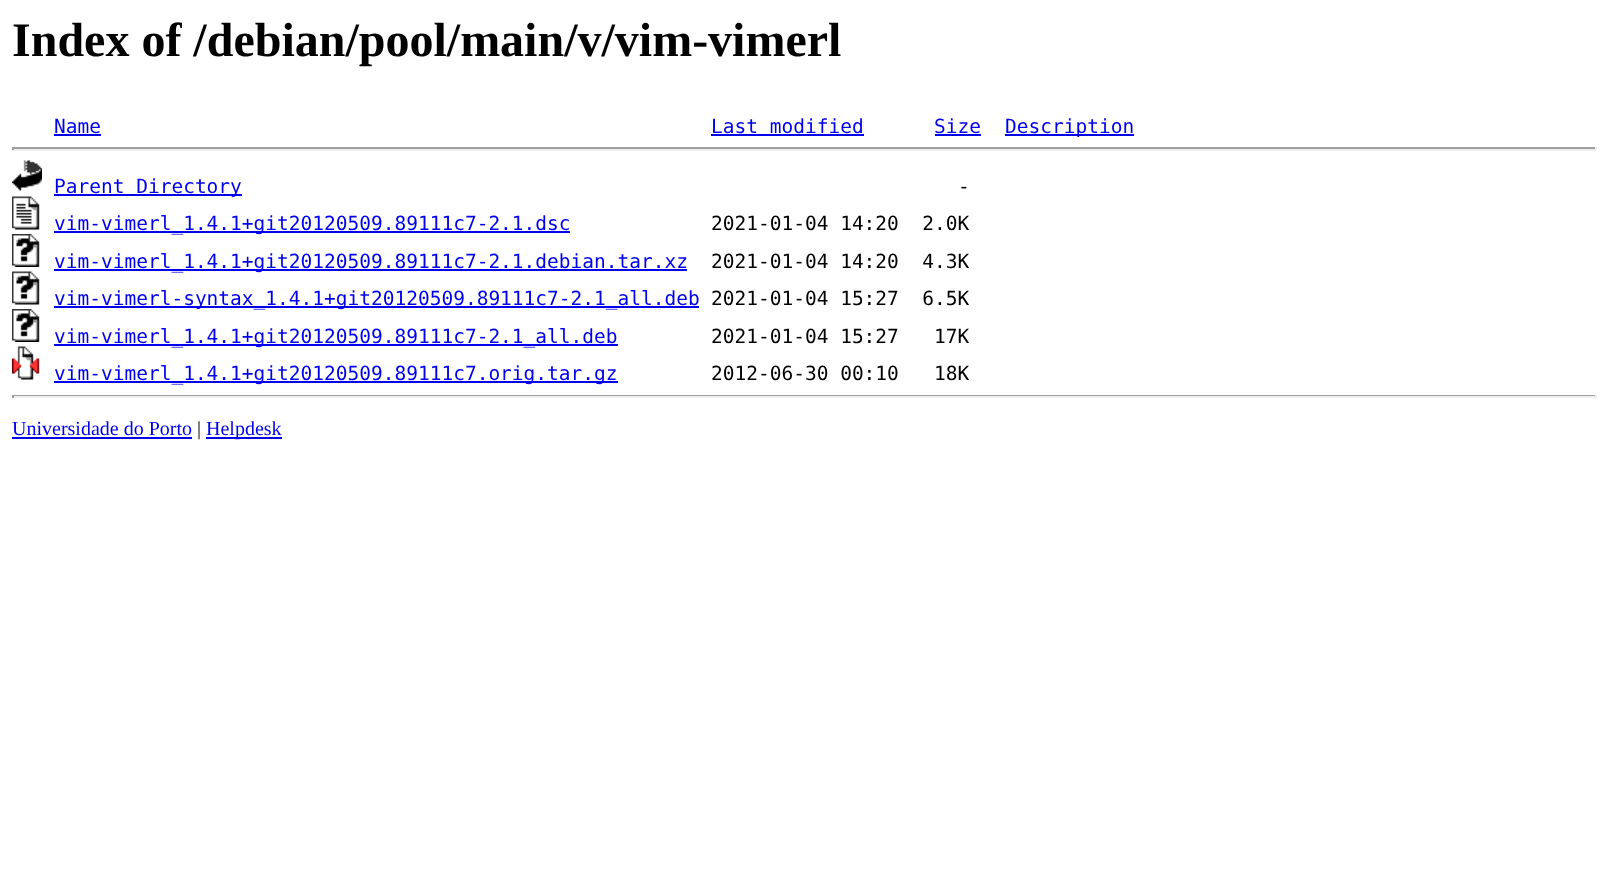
<!DOCTYPE html>
<meta charset="utf-8">
<style>body { margin: 0 } canvas { display: block }</style>
<canvas id="canvas" width="1608" height="871"></canvas>
<script type="module">
  const canvas = document.getElementById("canvas");
  const ctx = canvas.getContext("2d");
  ctx.miterLimit = 4;
  ctx.fontKerning = "normal";
  async function loadImage(src) {
    const img = new Image();
    img.src = src;
    await img.decode();
    return img;
  }

  ctx.fillStyle = "#ffffff";
  ctx.fillRect(0, 0, 1608, 871);
  ctx.font = "bold 48px Liberation Serif";
  ctx.fillStyle = "#000000";
  ctx.fillText("Index of /debian/pool/main/v/vim-vimerl", 12, 56);
  ctx.font = "19.5px DejaVu Sans Mono";
  ctx.fillStyle = "#0000ee";
  ctx.fillText("Name", 54, 133);
  ctx.fillRect(54, 134, 47, 2);
  ctx.fillText("Last modified", 711, 133);
  ctx.fillRect(711, 134, 153, 2);
  ctx.fillText("Size", 934, 133);
  ctx.fillRect(935, 134, 46, 2);
  ctx.fillRect(1005, 134, 129, 2);
  ctx.fillText("Description", 1005, 133);
  ctx.fillStyle = "#9f9f9f";
  ctx.fillRect(12, 147, 1584, 2);
  ctx.fillStyle = "#eeeeee";
  ctx.fillRect(1595, 147, 2, 3);
  ctx.fillRect(12, 149, 1584, 2);
  ctx.fillStyle = "#9f9f9f";
  ctx.fillRect(12, 147, 2, 3);
  ctx.drawImage(await loadImage("img1.png"), 12, 160, 30, 31);
  ctx.fillStyle = "#0000ee";
  ctx.fillRect(54, 194, 188, 2);
  ctx.fillText("Parent Directory", 54, 193);
  ctx.fillStyle = "#000000";
  ctx.fillText("-", 958, 193);
  ctx.drawImage(await loadImage("img2.png"), 12, 196, 28, 34);
  ctx.fillStyle = "#0000ee";
  ctx.fillRect(54, 231, 516, 2);
  ctx.fillText("vim-vimerl_1.4.1+git20120509.89111c7-2.1.dsc", 54, 230);
  ctx.fillStyle = "#000000";
  ctx.fillText("2021-01-04 14:20  2.0K", 711, 230);
  ctx.drawImage(await loadImage("img3.png"), 12, 234, 28, 33);
  ctx.fillStyle = "#0000ee";
  ctx.fillRect(54, 269, 633, 2);
  ctx.fillText("vim-vimerl_1.4.1+git20120509.89111c7-2.1.debian.tar.xz", 54, 268);
  ctx.fillStyle = "#000000";
  ctx.fillText("2021-01-04 14:20  4.3K", 711, 268);
  ctx.drawImage(await loadImage("img4.png"), 12, 271, 28, 34);
  ctx.fillStyle = "#0000ee";
  ctx.fillRect(54, 306, 645, 2);
  ctx.fillText("vim-vimerl-syntax_1.4.1+git20120509.89111c7-2.1_all.deb", 54, 305);
  ctx.fillStyle = "#000000";
  ctx.fillText("2021-01-04 15:27  6.5K", 711, 305);
  ctx.drawImage(await loadImage("img3.png"), 12, 309, 28, 33);
  ctx.fillStyle = "#0000ee";
  ctx.fillRect(54, 344, 564, 2);
  ctx.fillText("vim-vimerl_1.4.1+git20120509.89111c7-2.1_all.deb", 54, 343);
  ctx.fillStyle = "#000000";
  ctx.fillText("2021-01-04 15:27   17K", 711, 343);
  ctx.drawImage(await loadImage("img5.png"), 12, 346, 28, 34);
  ctx.fillStyle = "#0000ee";
  ctx.fillRect(54, 381, 564, 2);
  ctx.fillText("vim-vimerl_1.4.1+git20120509.89111c7.orig.tar.gz", 54, 380);
  ctx.fillStyle = "#000000";
  ctx.fillText("2012-06-30 00:10   18K", 711, 380);
  ctx.fillStyle = "#9f9f9f";
  ctx.fillRect(12, 395, 1584, 1);
  ctx.fillStyle = "#eeeeee";
  ctx.fillRect(1595, 395, 2, 3);
  ctx.fillRect(12, 396, 1584, 2);
  ctx.fillStyle = "#9f9f9f";
  ctx.fillRect(12, 395, 2, 3);
  ctx.font = "20px Liberation Serif";
  ctx.fillStyle = "#0000ee";
  ctx.fillText("Universidade do Porto", 12, 435);
  ctx.fillRect(12, 437, 180, 2);
  ctx.fillStyle = "#000000";
  ctx.fillText("|", 197, 435);
  ctx.fillStyle = "#0000ee";
  ctx.fillRect(206, 437, 76, 2);
  ctx.fillText("Helpdesk", 206, 435);
</script>
